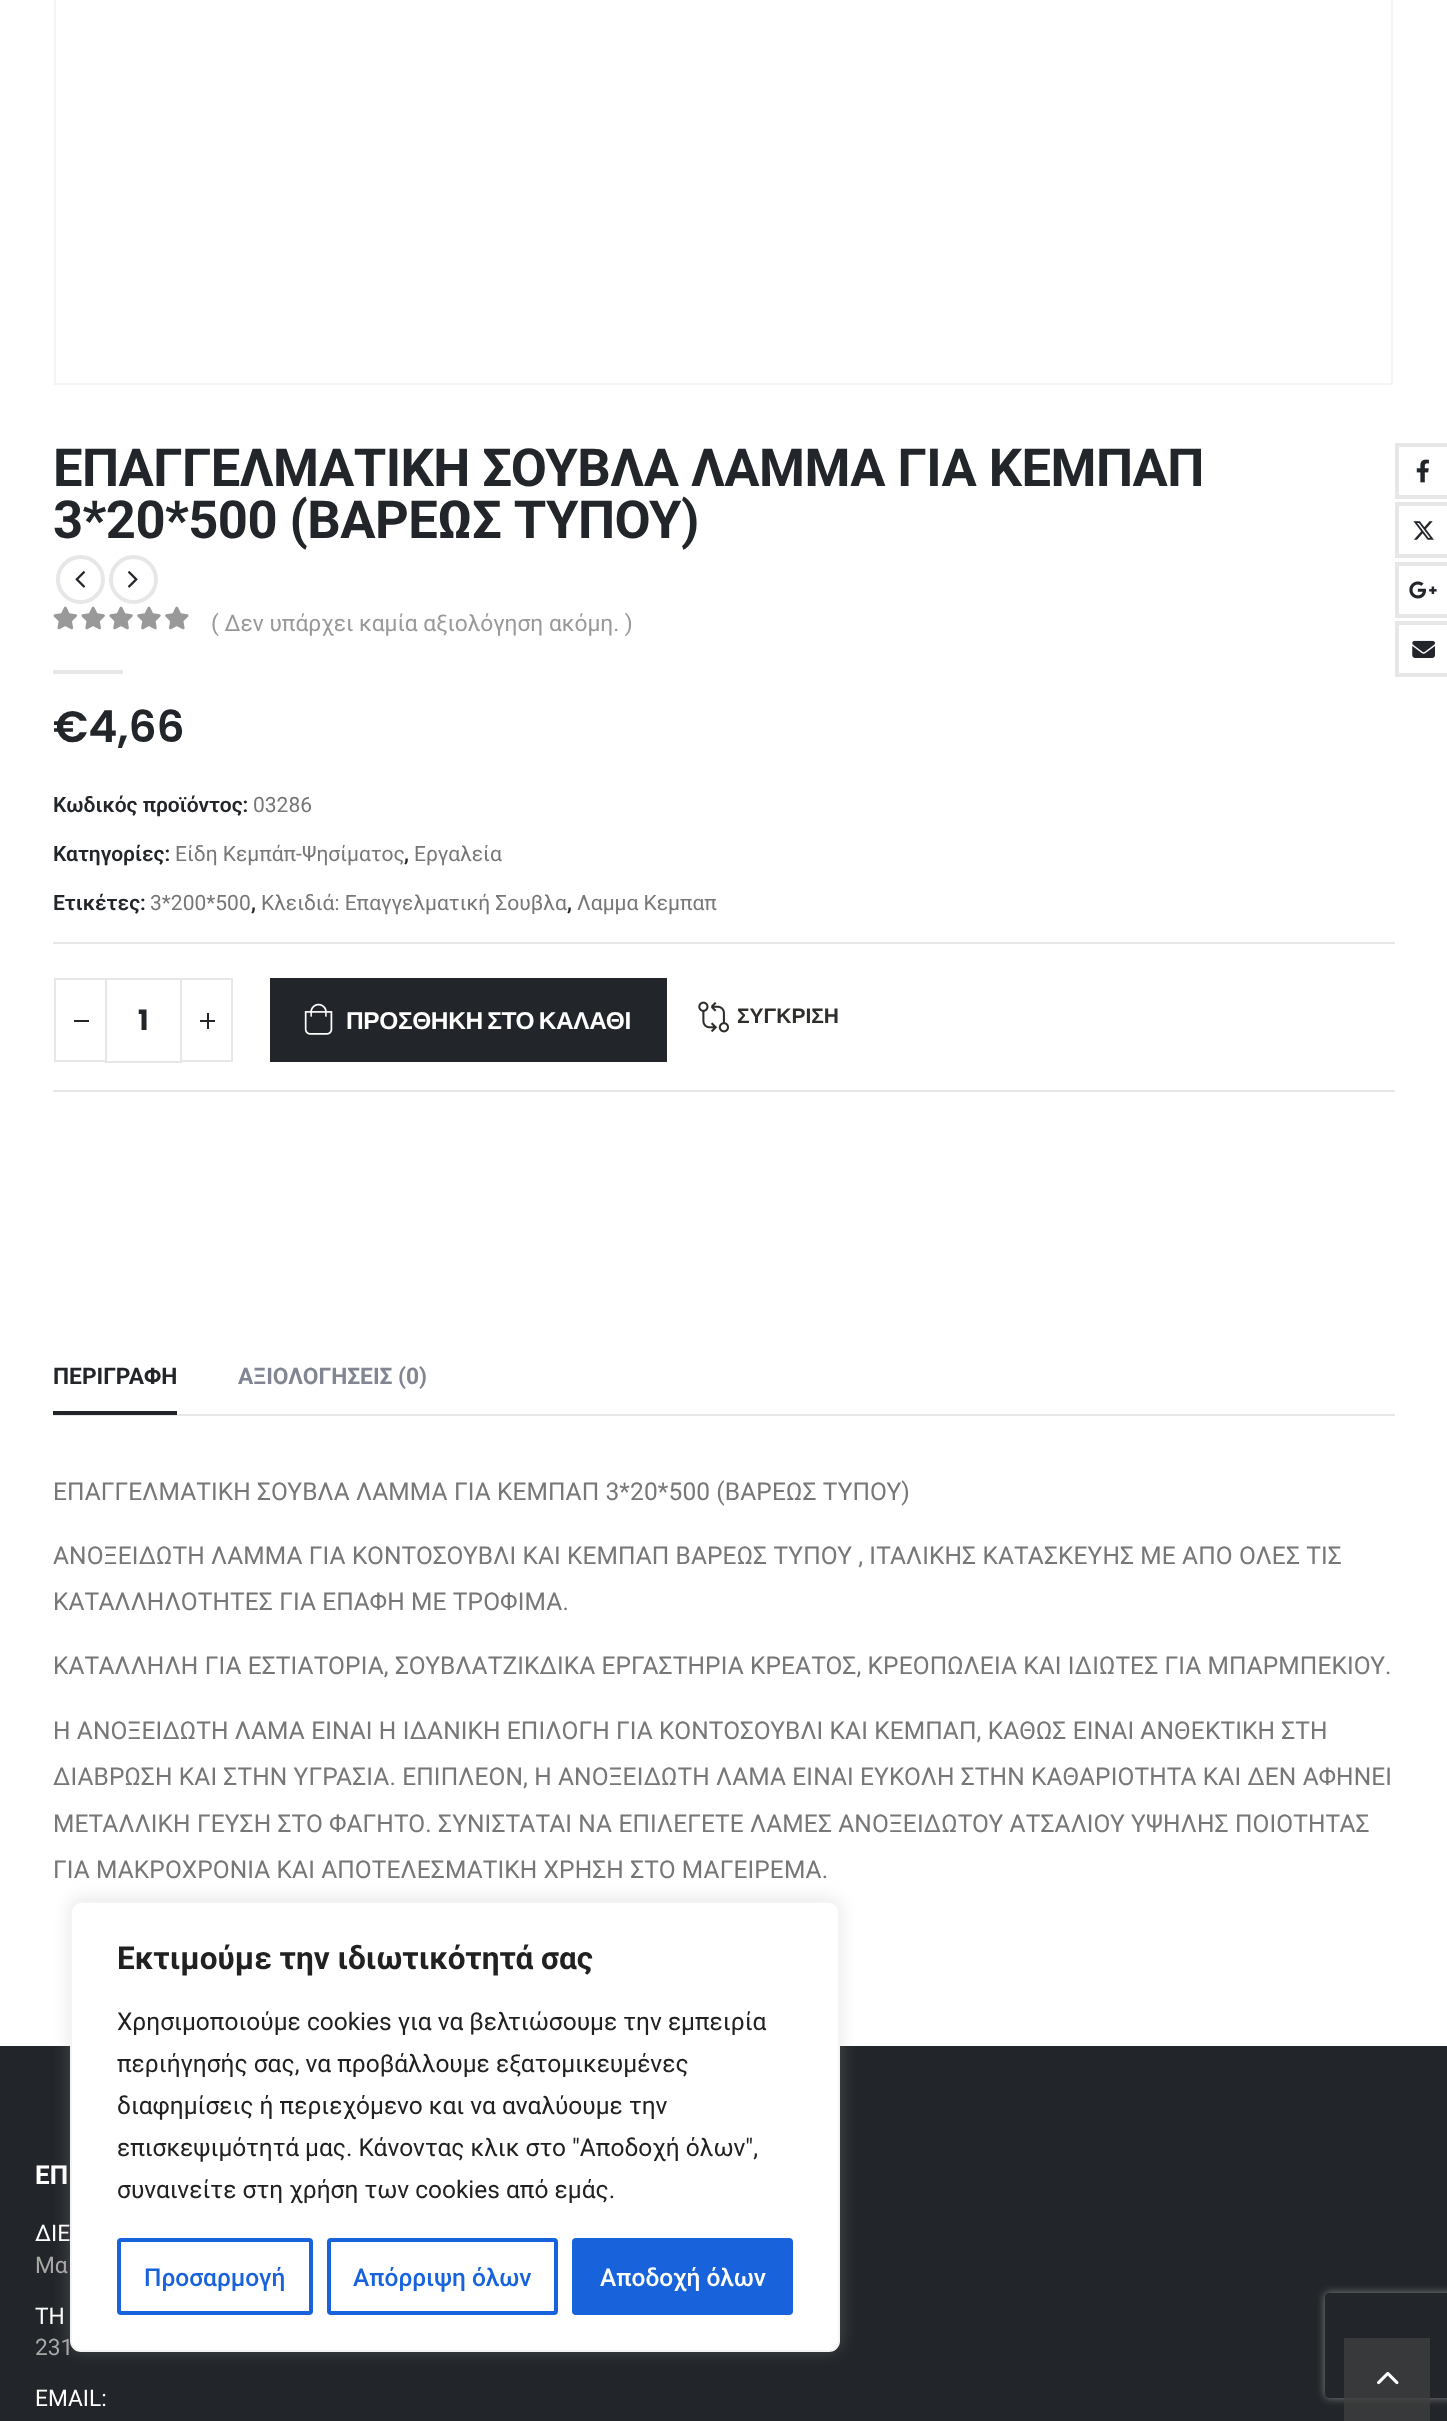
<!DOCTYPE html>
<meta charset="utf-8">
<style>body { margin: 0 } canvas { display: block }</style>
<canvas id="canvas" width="1447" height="2421"></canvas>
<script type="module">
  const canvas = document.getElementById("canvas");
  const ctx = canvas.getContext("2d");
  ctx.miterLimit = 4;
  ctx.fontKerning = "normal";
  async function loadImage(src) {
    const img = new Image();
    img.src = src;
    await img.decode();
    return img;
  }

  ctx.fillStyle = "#ffffff";
  ctx.fillRect(0, 0, 1447, 2421);
  ctx.strokeStyle = "#f4f4f4";
  ctx.lineWidth = 2;
  ctx.strokeRect(55, -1, 1337, 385);
  ctx.letterSpacing = "-0.55px";
  ctx.font = "bold 52.5px Roboto";
  ctx.fillStyle = "#222529";
  ctx.fillText("ΕΠΑΓΓΕΛΜΑΤΙΚΗ ΣΟΥΒΛΑ ΛΑΜΜΑ ΓΙΑ ΚΕΜΠΑΠ", 53, 486);
  ctx.fillText("3*20*500 (ΒΑΡΕΩΣ ΤΥΠΟΥ)", 53, 538);
  ctx.strokeStyle = "#e7e7e7";
  ctx.lineWidth = 4;
  ctx.strokeRect(1397, 445, 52, 52);
  ctx.drawImage(await loadImage("img1.png"), 1416, 459, 13, 24);
  ctx.strokeRect(1397, 504, 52, 52);
  ctx.drawImage(await loadImage("img2.png"), 1413, 521, 21, 19);
  ctx.strokeRect(1397, 564, 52, 52);
  ctx.drawImage(await loadImage("img3.png"), 1409, 581, 28, 18);
  ctx.strokeRect(1397, 623, 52, 52);
  ctx.drawImage(await loadImage("img4.png"), 1412, 640, 23, 18);
  ctx.beginPath();
  ctx.arc(80.5, 579.5, 22.5, 0, Math.PI * 2);
  ctx.stroke();
  ctx.drawImage(await loadImage("img5.png"), 75, 571, 11, 17);
  ctx.beginPath();
  ctx.arc(133.5, 579.5, 22.5, 0, Math.PI * 2);
  ctx.stroke();
  ctx.drawImage(await loadImage("img6.png"), 127, 571, 11, 17);
  ctx.drawImage(await loadImage("img7.png"), 53, 606, 136, 24);
  ctx.letterSpacing = "0px";
  ctx.font = "22.75px Roboto";
  ctx.fillStyle = "#999999";
  ctx.fillText("( Δεν υπάρχει καμία αξιολόγηση ακόμη. )", 211, 631);
  ctx.fillStyle = "#e7e7e7";
  ctx.fillRect(53, 670, 70, 4);
  ctx.font = "600 44px Poppins";
  ctx.fillStyle = "#222529";
  ctx.fillText("€4,66", 53, 742);
  ctx.font = "600 21px Roboto";
  ctx.fillText("Κωδικός προϊόντος:", 53, 812);
  ctx.font = "21px Roboto";
  ctx.fillStyle = "#777777";
  ctx.fillText("03286", 253, 812);
  ctx.font = "600 21px Roboto";
  ctx.fillStyle = "#222529";
  ctx.fillText("Κατηγορίες:", 53, 861);
  ctx.font = "21px Roboto";
  ctx.fillStyle = "#777777";
  ctx.fillText("Είδη Κεμπάπ-Ψησίματος", 175, 861);
  ctx.font = "600 21px Roboto";
  ctx.fillStyle = "#222529";
  ctx.fillText(",", 404, 861);
  ctx.font = "21px Roboto";
  ctx.fillStyle = "#777777";
  ctx.fillText("Εργαλεία", 414, 861);
  ctx.font = "600 21px Roboto";
  ctx.fillStyle = "#222529";
  ctx.fillText("Ετικέτες:", 53, 910);
  ctx.font = "21px Roboto";
  ctx.fillStyle = "#777777";
  ctx.fillText("3*200*500", 150, 910);
  ctx.font = "600 21px Roboto";
  ctx.fillStyle = "#222529";
  ctx.fillText(",", 251, 910);
  ctx.font = "21px Roboto";
  ctx.fillStyle = "#777777";
  ctx.fillText("Κλειδιά: Επαγγελματική Σουβλα", 261, 910);
  ctx.font = "600 21px Roboto";
  ctx.fillStyle = "#222529";
  ctx.fillText(",", 567, 910);
  ctx.font = "21px Roboto";
  ctx.fillStyle = "#777777";
  ctx.fillText("Λαμμα Κεμπαπ", 577, 910);
  ctx.fillStyle = "#e7e7e7";
  ctx.fillRect(53, 942, 1342, 2);
  ctx.fillRect(53, 1090, 1342, 2);
  ctx.fillRect(105, 978, 77, 2);
  ctx.fillRect(105, 1061, 77, 2);
  ctx.lineWidth = 2;
  ctx.strokeRect(55, 979, 51, 82);
  ctx.fillStyle = "#222529";
  ctx.fillRect(74, 1020, 15, 2);
  ctx.font = "bold 28px Poppins";
  ctx.fillText("1", 138, 1030);
  ctx.strokeRect(181, 979, 51, 82);
  ctx.fillRect(200, 1020, 15, 2);
  ctx.fillRect(207, 1013, 2, 16);
  ctx.fillRect(270, 978, 397, 84);
  ctx.drawImage(await loadImage("img8.png"), 304, 1003, 29, 32);
  ctx.letterSpacing = "-0.4px";
  ctx.wordSpacing = "-2px";
  ctx.font = "bold 24.5px Liberation Sans";
  ctx.fillStyle = "#ffffff";
  ctx.fillText("ΠΡΟΣΘΗΚΗ ΣΤΟ ΚΑΛΑΘΙ", 346, 1029);
  ctx.drawImage(await loadImage("img9.png"), 698, 1001, 31, 32);
  ctx.letterSpacing = "0px";
  ctx.wordSpacing = "0px";
  ctx.font = "bold 21px Liberation Sans";
  ctx.fillStyle = "#302e2a";
  ctx.fillText("ΣΥΓΚΡΙΣΗ", 737, 1023);
  ctx.fillStyle = "#e7e7e7";
  ctx.fillRect(53, 1414, 1342, 2);
  ctx.fillStyle = "#222529";
  ctx.fillRect(53, 1411, 124, 4);
  ctx.font = "bold 22.75px Roboto";
  ctx.fillText("ΠΕΡΙΓΡΑΦΗ", 53, 1384);
  ctx.fillStyle = "#818692";
  ctx.fillText("ΑΞΙΟΛΟΓΗΣΕΙΣ (0)", 238, 1384);
  ctx.letterSpacing = "0.12px";
  ctx.font = "24.5px Roboto";
  ctx.fillStyle = "#777777";
  ctx.fillText("ΕΠΑΓΓΕΛΜΑΤΙΚΗ ΣΟΥΒΛΑ ΛΑΜΜΑ ΓΙΑ ΚΕΜΠΑΠ 3*20*500 (ΒΑΡΕΩΣ ΤΥΠΟΥ)", 53, 1500);
  ctx.fillText("ΑΝΟΞΕΙΔΩΤΗ ΛΑΜΜΑ ΓΙΑ ΚΟΝΤΟΣΟΥΒΛΙ ΚΑΙ ΚΕΜΠΑΠ ΒΑΡΕΩΣ ΤΥΠΟΥ , ΙΤΑΛΙΚΗΣ ΚΑΤΑΣΚΕΥΗΣ ΜΕ ΑΠΟ ΟΛΕΣ ΤΙΣ", 53, 1564);
  ctx.fillText("ΚΑΤΑΛΛΗΛΟΤΗΤΕΣ ΓΙΑ ΕΠΑΦΗ ΜΕ ΤΡΟΦΙΜΑ.", 53, 1610);
  ctx.fillText("ΚΑΤΑΛΛΗΛΗ ΓΙΑ ΕΣΤΙΑΤΟΡΙΑ, ΣΟΥΒΛΑΤΖΙΚΔΙΚΑ ΕΡΓΑΣΤΗΡΙΑ ΚΡΕΑΤΟΣ, ΚΡΕΟΠΩΛΕΙΑ ΚΑΙ ΙΔΙΩΤΕΣ ΓΙΑ ΜΠΑΡΜΠΕΚΙΟΥ.", 53, 1674);
  ctx.fillText("Η ΑΝΟΞΕΙΔΩΤΗ ΛΑΜΑ ΕΙΝΑΙ Η ΙΔΑΝΙΚΗ ΕΠΙΛΟΓΗ ΓΙΑ ΚΟΝΤΟΣΟΥΒΛΙ ΚΑΙ ΚΕΜΠΑΠ, ΚΑΘΩΣ ΕΙΝΑΙ ΑΝΘΕΚΤΙΚΗ ΣΤΗ", 53, 1739);
  ctx.fillText("ΔΙΑΒΡΩΣΗ ΚΑΙ ΣΤΗΝ ΥΓΡΑΣΙΑ. ΕΠΙΠΛΕΟΝ, Η ΑΝΟΞΕΙΔΩΤΗ ΛΑΜΑ ΕΙΝΑΙ ΕΥΚΟΛΗ ΣΤΗΝ ΚΑΘΑΡΙΟΤΗΤΑ ΚΑΙ ΔΕΝ ΑΦΗΝΕΙ", 53, 1785);
  ctx.fillText("ΜΕΤΑΛΛΙΚΗ ΓΕΥΣΗ ΣΤΟ ΦΑΓΗΤΟ. ΣΥΝΙΣΤΑΤΑΙ ΝΑ ΕΠΙΛΕΓΕΤΕ ΛΑΜΕΣ ΑΝΟΞΕΙΔΩΤΟΥ ΑΤΣΑΛΙΟΥ ΥΨΗΛΗΣ ΠΟΙΟΤΗΤΑΣ", 53, 1832);
  ctx.fillText("ΓΙΑ ΜΑΚΡΟΧΡΟΝΙΑ ΚΑΙ ΑΠΟΤΕΛΕΣΜΑΤΙΚΗ ΧΡΗΣΗ ΣΤΟ ΜΑΓΕΙΡΕΜΑ.", 53, 1878);
  ctx.fillStyle = "#222529";
  ctx.fillRect(0, 2046, 1447, 375);
  ctx.letterSpacing = "0px";
  ctx.font = "bold 26px Roboto";
  ctx.fillStyle = "#ffffff";
  ctx.fillText("ΕΠ", 35, 2184);
  ctx.font = "22.75px Roboto";
  ctx.fillText("ΔΙΕ", 35, 2241);
  ctx.fillStyle = "#a8a8a8";
  ctx.fillText("Μα", 35, 2273);
  ctx.fillStyle = "#ffffff";
  ctx.fillText("ΤΗ", 35, 2324);
  ctx.fillStyle = "#a8a8a8";
  ctx.fillText("231", 35, 2355);
  ctx.fillStyle = "#ffffff";
  ctx.fillText("EMAIL:", 35, 2406);
  ctx.fillStyle = "rgba(172, 171, 171, 0.3)";
  ctx.filter = "blur(9px)";
  ctx.beginPath();
  ctx.roundRect(70, 1899, 770, 451, 11);
  ctx.fill();
  ctx.filter = "none";
  ctx.fillStyle = "#ffffff";
  ctx.beginPath();
  ctx.roundRect(71, 1902, 768, 449, 10);
  ctx.fill();
  ctx.strokeStyle = "#f4f4f4";
  ctx.stroke();
  ctx.font = "bold 31.5px Roboto";
  ctx.fillStyle = "#212121";
  ctx.fillText("Εκτιμούμε την ιδιωτικότητά σας", 117, 1969);
  ctx.font = "24.5px Roboto";
  ctx.fillText("Χρησιμοποιούμε cookies για να βελτιώσουμε την εμπειρία", 117, 2030);
  ctx.fillText("περιήγησής σας, να προβάλλουμε εξατομικευμένες", 117, 2072);
  ctx.fillText("διαφημίσεις ή περιεχόμενο και να αναλύουμε την", 117, 2114);
  ctx.fillText("επισκεψιμότητά μας. Κάνοντας κλικ στο \"Αποδοχή όλων\",", 117, 2156);
  ctx.fillText("συναινείτε στη χρήση των cookies από εμάς.", 117, 2198);
  ctx.beginPath();
  ctx.roundRect(119, 2240, 192, 73, 2);
  ctx.strokeStyle = "#1863dc";
  ctx.lineWidth = 4;
  ctx.stroke();
  ctx.font = "500 24.5px Roboto";
  ctx.fillStyle = "#1863dc";
  ctx.fillText("Προσαρμογή", 144, 2286);
  ctx.beginPath();
  ctx.roundRect(329, 2240, 227, 73, 2);
  ctx.stroke();
  ctx.fillText("Απόρριψη όλων", 353, 2286);
  ctx.beginPath();
  ctx.roundRect(574, 2240, 217, 73, 2);
  ctx.fill();
  ctx.stroke();
  ctx.fillStyle = "#ffffff";
  ctx.fillText("Αποδοχή όλων", 600, 2286);
  ctx.save();
  ctx.beginPath();
  ctx.moveTo(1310, 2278);
  ctx.lineTo(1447, 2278);
  ctx.lineTo(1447, 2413);
  ctx.lineTo(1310, 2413);
  ctx.closePath();
  ctx.moveTo(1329, 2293);
  ctx.lineTo(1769, 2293);
  ctx.bezierCurveTo(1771, 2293, 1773, 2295, 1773, 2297);
  ctx.lineTo(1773, 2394);
  ctx.bezierCurveTo(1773, 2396, 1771, 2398, 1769, 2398);
  ctx.lineTo(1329, 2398);
  ctx.bezierCurveTo(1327, 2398, 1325, 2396, 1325, 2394);
  ctx.lineTo(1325, 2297);
  ctx.bezierCurveTo(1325, 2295, 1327, 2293, 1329, 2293);
  ctx.closePath();
  ctx.clip("evenodd");
  ctx.fillStyle = "#808080";
  ctx.filter = "blur(4.5px)";
  ctx.beginPath();
  ctx.roundRect(1325, 2293, 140, 105, 4);
  ctx.fill();
  ctx.filter = "none";
  ctx.restore();
  ctx.fillStyle = "rgba(64, 64, 64, 0.75)";
  ctx.fillRect(1344, 2338, 86, 83);
  ctx.drawImage(await loadImage("img10.png"), 1377, 2371, 22, 14);
</script>
